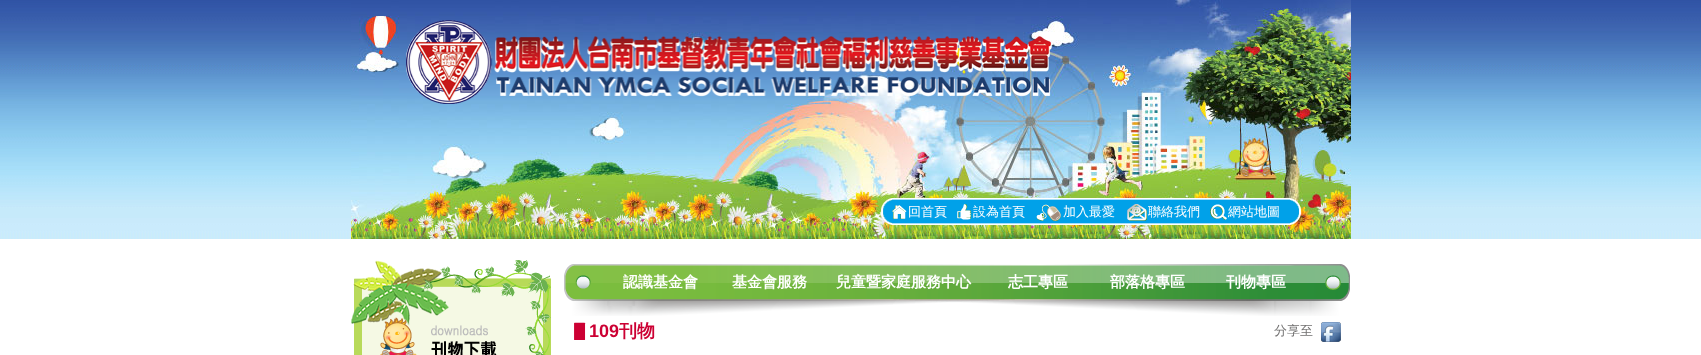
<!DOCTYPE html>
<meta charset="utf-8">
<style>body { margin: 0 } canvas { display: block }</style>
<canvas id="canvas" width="1701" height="355"></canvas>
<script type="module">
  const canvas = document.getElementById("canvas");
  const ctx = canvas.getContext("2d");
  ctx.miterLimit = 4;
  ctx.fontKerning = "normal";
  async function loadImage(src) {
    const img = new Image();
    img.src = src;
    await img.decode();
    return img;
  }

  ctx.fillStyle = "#ffffff";
  ctx.fillRect(0, 0, 1701, 355);
  ctx.drawImage(await loadImage("img1.png"), 0, 0, 1701, 239);
  ctx.drawImage(await loadImage("img2.png"), 351, 0, 1000, 239);
  ctx.drawImage(await loadImage("img3.png"), 406, 20, 646, 84);
  ctx.drawImage(await loadImage("img4.png"), 881, 198, 420, 27);
  ctx.drawImage(await loadImage("img5.png"), 892, 205, 15, 14);
  ctx.font = "500 13px WenQuanYi Zen Hei";
  ctx.fillText("回首頁", 908, 216);
  ctx.drawImage(await loadImage("img6.png"), 957, 204, 15, 16);
  ctx.fillText("設為首頁", 973, 216);
  ctx.drawImage(await loadImage("img7.png"), 1036, 204, 25, 17);
  ctx.fillText("加入最愛", 1063, 216);
  ctx.drawImage(await loadImage("img8.png"), 1127, 204, 20, 17);
  ctx.fillText("聯絡我們", 1148, 216);
  ctx.drawImage(await loadImage("img9.png"), 1210, 204, 17, 16);
  ctx.fillText("網站地圖", 1228, 216);
  ctx.drawImage(await loadImage("img10.png"), 351, 260, 200, 95);
  ctx.drawImage(await loadImage("img11.png"), 380, 317, 117, 38);
  ctx.drawImage(await loadImage("img12.png"), 564, 264, 786, 52);
  ctx.font = "bold 15px WenQuanYi Zen Hei";
  ctx.fillText("認識基金會", 623, 287);
  ctx.fillText("基金會服務", 732, 287);
  ctx.fillText("兒童暨家庭服務中心", 836, 287);
  ctx.fillText("志工專區", 1008, 287);
  ctx.fillText("部落格專區", 1110, 287);
  ctx.fillText("刊物專區", 1226, 287);
  ctx.font = "bold 18px WenQuanYi Zen Hei";
  ctx.fillStyle = "#cc0033";
  ctx.fillText("▋", 571, 337);
  ctx.font = "bold 18px Liberation Sans";
  ctx.fillText("109", 589, 337);
  ctx.font = "bold 18px WenQuanYi Zen Hei";
  ctx.fillText("刊物", 619, 337);
  ctx.font = "500 13px WenQuanYi Zen Hei";
  ctx.fillStyle = "#727171";
  ctx.fillText("分享至", 1274, 335);
  ctx.drawImage(await loadImage("img13.png"), 1321, 322, 20, 20);
</script>
